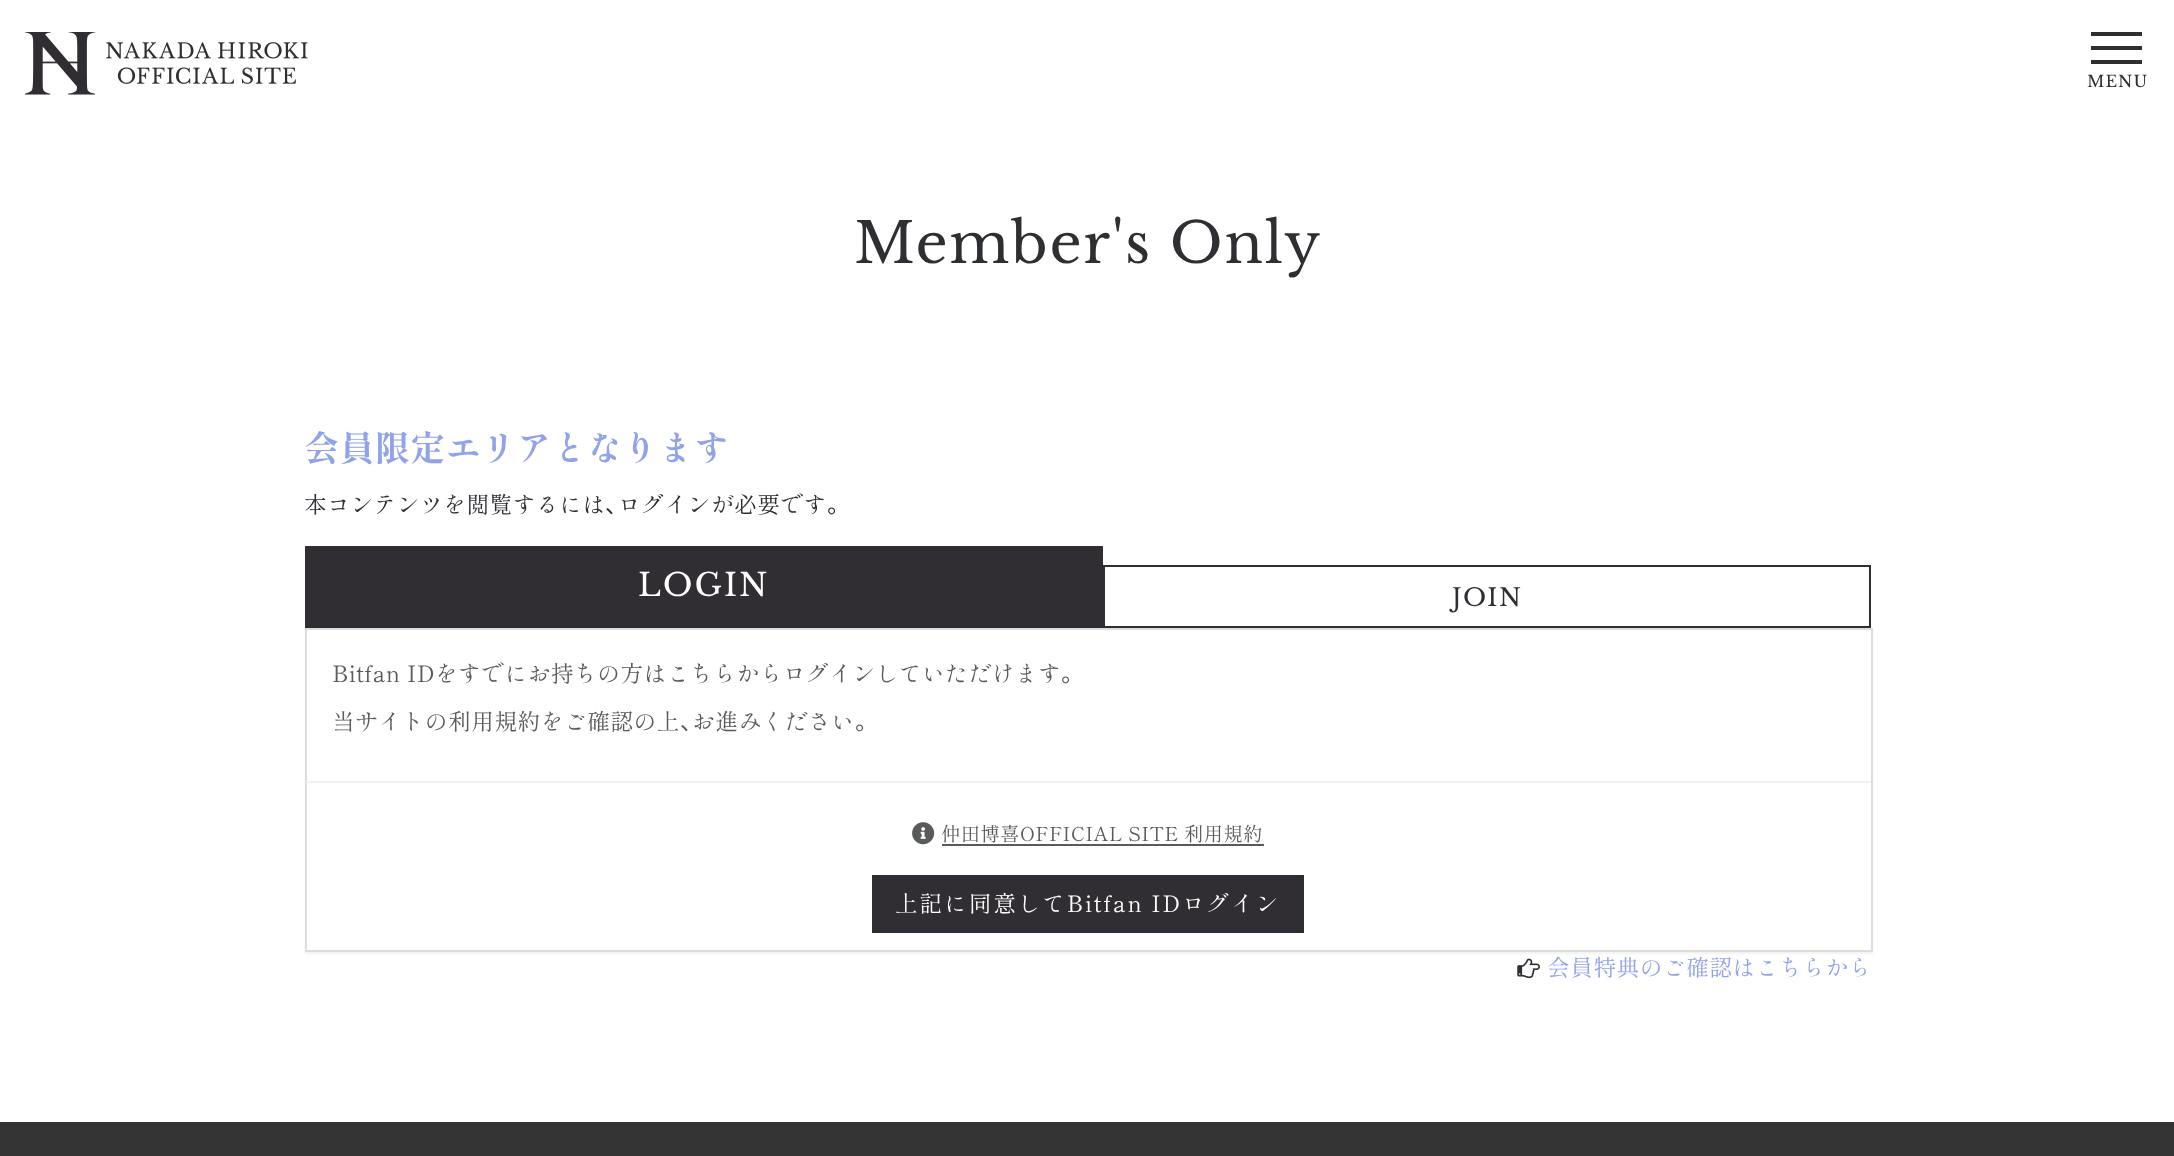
<!DOCTYPE html>
<meta charset="utf-8">
<style>body { margin: 0 } canvas { display: block }</style>
<canvas id="canvas" width="2174" height="1156"></canvas>
<script type="module">
  const canvas = document.getElementById("canvas");
  const ctx = canvas.getContext("2d");
  ctx.miterLimit = 4;
  ctx.fontKerning = "normal";
  async function loadImage(src) {
    const img = new Image();
    img.src = src;
    await img.decode();
    return img;
  }

  ctx.fillStyle = "#ffffff";
  ctx.fillRect(0, 0, 2174, 1156);
  ctx.drawImage(await loadImage("img1.png"), 25, 32, 283, 63);
  ctx.fillStyle = "#302d33";
  ctx.fillRect(2091, 32, 51, 4);
  ctx.fillRect(2091, 46, 51, 4);
  ctx.fillRect(2091, 60, 51, 4);
  ctx.letterSpacing = "1px";
  ctx.font = "16px Libre Baskerville";
  ctx.fillText("MENU", 2087, 87);
  ctx.letterSpacing = "1.75px";
  ctx.font = "56px Libre Baskerville";
  ctx.fillText("Member's Only", 854, 263);
  ctx.letterSpacing = "0.45px";
  ctx.font = "bold 35px Shippori Mincho";
  ctx.fillStyle = "#90a3ea";
  ctx.fillText("会員限定エリアとなります", 304, 461);
  ctx.font = "22.75px Shippori Mincho";
  ctx.fillStyle = "#302d33";
  ctx.fillText("本コンテンツを閲覧するには", 304, 513);
  ctx.font = "22.75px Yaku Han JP";
  ctx.fillText("、", 605, 513);
  ctx.font = "22.75px Shippori Mincho";
  ctx.fillText("ログインが必要です", 618, 513);
  ctx.font = "22.75px Yaku Han JP";
  ctx.fillText("。", 827, 513);
  ctx.fillStyle = "rgba(0, 0, 0, 0.05)";
  ctx.filter = "blur(1px)";
  ctx.beginPath();
  ctx.rect(305, 630, 1568, 324);
  ctx.fill();
  ctx.filter = "none";
  ctx.fillStyle = "#302d33";
  ctx.fillRect(305, 546, 798, 82);
  ctx.letterSpacing = "2px";
  ctx.font = "31.5px Libre Baskerville";
  ctx.fillStyle = "#ffffff";
  ctx.fillText("LOGIN", 638, 596);
  ctx.strokeStyle = "#302d33";
  ctx.lineWidth = 2;
  ctx.strokeRect(1104, 566, 766, 61);
  ctx.letterSpacing = "1.5px";
  ctx.font = "24.5px Libre Baskerville";
  ctx.fillStyle = "#302d33";
  ctx.fillText("JOIN", 1452, 606);
  ctx.fillStyle = "#ffffff";
  ctx.beginPath();
  ctx.rect(306, 629, 1566, 322);
  ctx.fill();
  ctx.strokeStyle = "#dddddd";
  ctx.stroke();
  ctx.letterSpacing = "0.45px";
  ctx.font = "22.75px Shippori Mincho";
  ctx.fillStyle = "#595a5c";
  ctx.fillText("Bitfan IDをすでにお持ちの方はこちらからログインしていただけます", 332, 682);
  ctx.font = "22.75px Yaku Han JP";
  ctx.fillText("。", 1061, 682);
  ctx.font = "22.75px Shippori Mincho";
  ctx.fillText("当サイトの利用規約をご確認の上", 332, 730);
  ctx.font = "22.75px Yaku Han JP";
  ctx.fillText("、", 680, 730);
  ctx.font = "22.75px Shippori Mincho";
  ctx.fillText("お進みください", 692, 730);
  ctx.font = "22.75px Yaku Han JP";
  ctx.fillText("。", 855, 730);
  ctx.fillStyle = "#f1f1f1";
  ctx.fillRect(306, 781, 1565, 2);
  ctx.drawImage(await loadImage("img2.png"), 912, 822, 23, 23);
  ctx.font = "19.3px Shippori Mincho";
  ctx.fillStyle = "#595a5c";
  ctx.fillText("仲田博喜OFFICIAL SITE 利用規約", 941, 841);
  ctx.fillRect(942, 844, 322, 2);
  ctx.fillStyle = "#302d33";
  ctx.fillRect(872, 875, 432, 58);
  ctx.letterSpacing = "1.8px";
  ctx.font = "22.75px Shippori Mincho";
  ctx.fillStyle = "#ffffff";
  ctx.fillText("上記に同意してBitfan IDログイン", 895, 912);
  ctx.drawImage(await loadImage("img3.png"), 1517, 958, 23, 21);
  ctx.letterSpacing = "0.45px";
  ctx.fillStyle = "#90a3ea";
  ctx.fillText("会員特典のご確認はこちらから", 1547, 976);
  ctx.fillStyle = "#333333";
  ctx.fillRect(0, 1122, 2174, 34);
</script>
